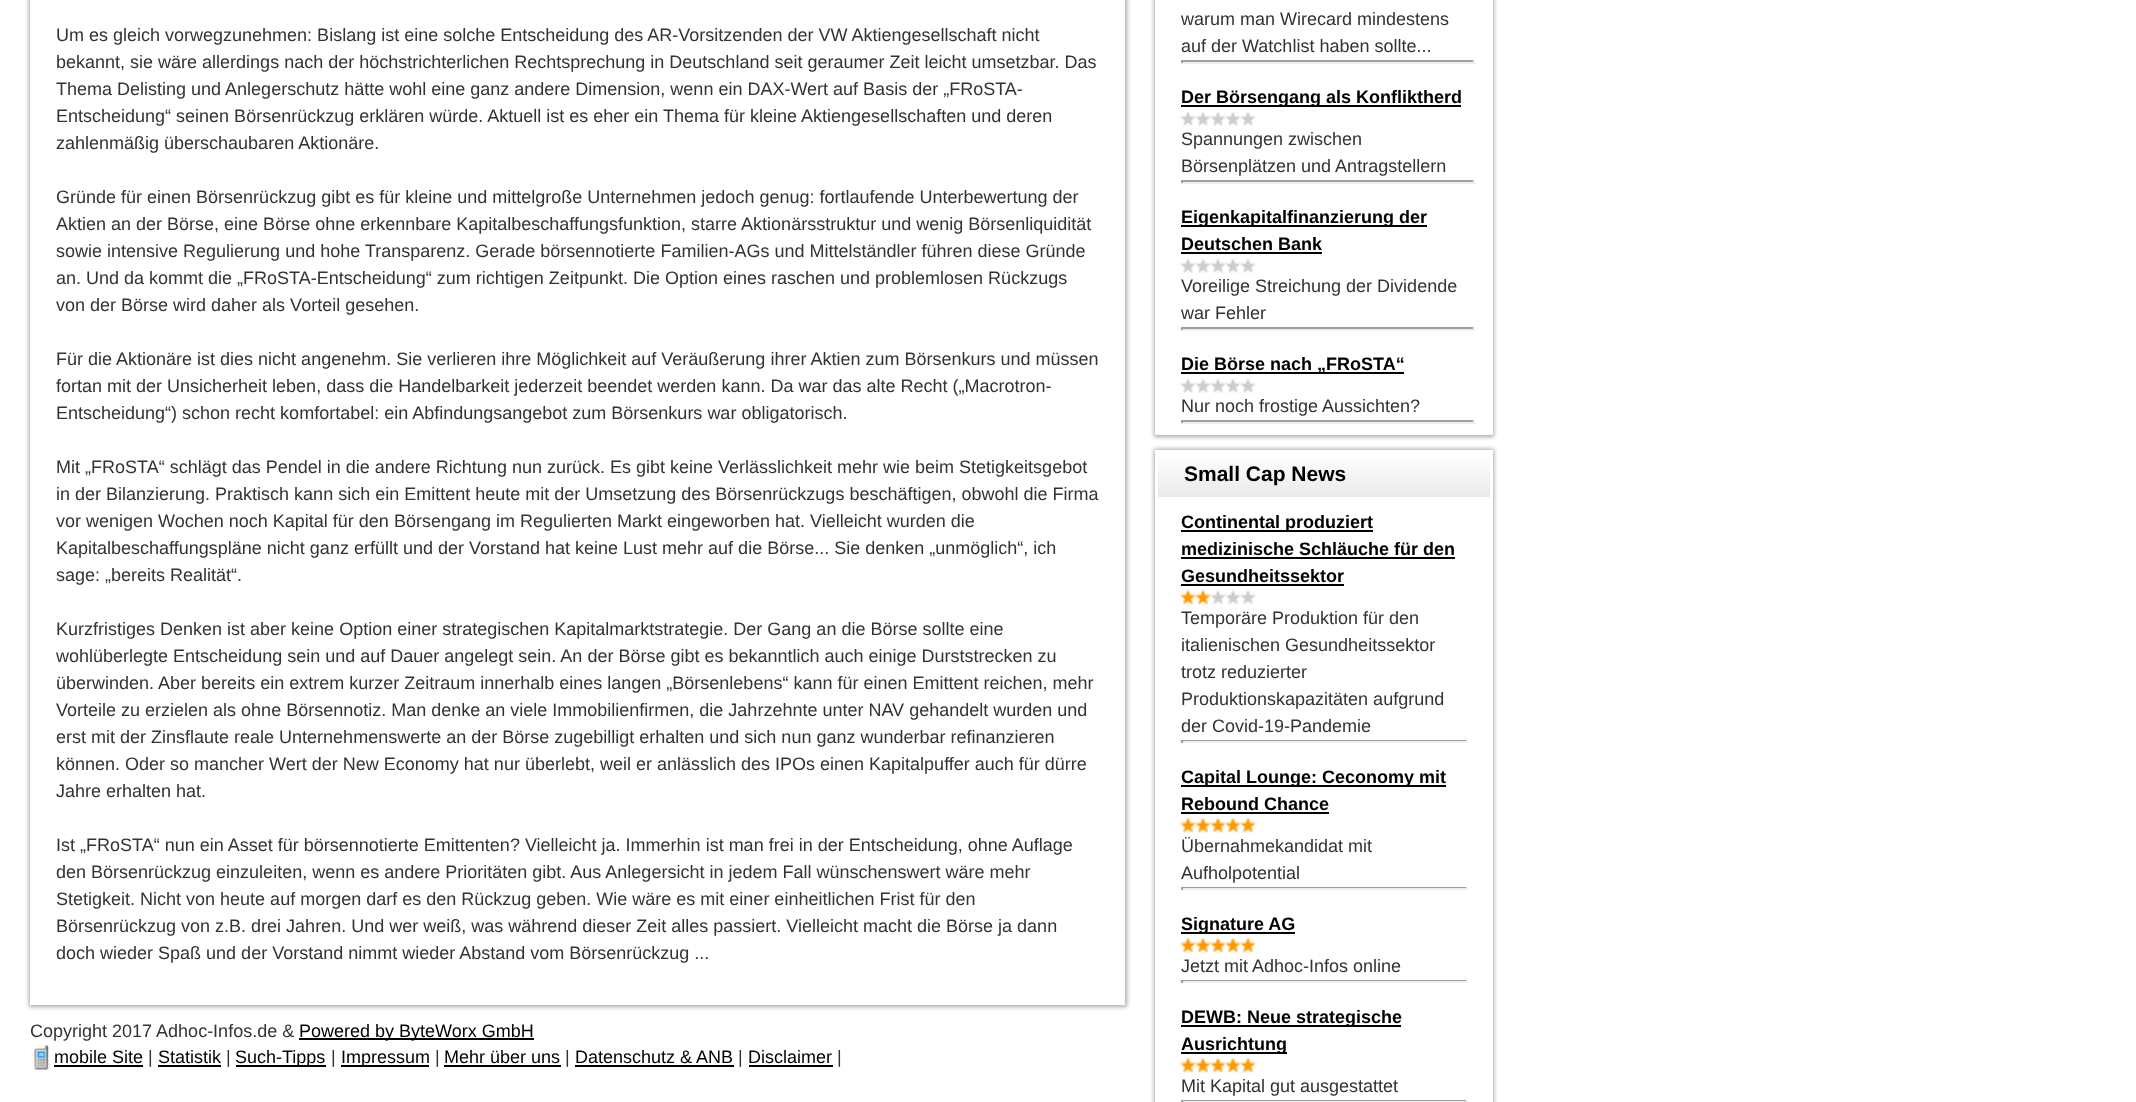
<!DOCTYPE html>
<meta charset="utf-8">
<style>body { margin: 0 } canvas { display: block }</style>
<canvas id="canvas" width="2136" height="1102"></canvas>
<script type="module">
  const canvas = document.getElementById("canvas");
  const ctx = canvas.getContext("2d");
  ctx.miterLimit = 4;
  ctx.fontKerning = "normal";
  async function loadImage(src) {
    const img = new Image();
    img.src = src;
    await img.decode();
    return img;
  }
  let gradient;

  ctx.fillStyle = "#ffffff";
  ctx.fillRect(0, 0, 2136, 1102);
  ctx.save();
  ctx.beginPath();
  ctx.moveTo(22, 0);
  ctx.lineTo(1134, 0);
  ctx.lineTo(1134, 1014);
  ctx.lineTo(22, 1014);
  ctx.closePath();
  ctx.moveTo(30, -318);
  ctx.lineTo(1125, -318);
  ctx.lineTo(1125, 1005);
  ctx.lineTo(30, 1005);
  ctx.closePath();
  ctx.clip("evenodd");
  ctx.fillStyle = "#aaaaaa";
  ctx.filter = "blur(2px)";
  ctx.beginPath();
  ctx.rect(29, -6, 1098, 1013);
  ctx.fill();
  ctx.filter = "none";
  ctx.restore();
  ctx.font = "18px Liberation Sans";
  ctx.fillStyle = "#333333";
  ctx.fillText("Um es gleich vorwegzunehmen: Bislang ist eine solche Entscheidung des AR-Vorsitzenden der VW Aktiengesellschaft nicht", 56, 41);
  ctx.fillText("bekannt, sie wäre allerdings nach der höchstrichterlichen Rechtsprechung in Deutschland seit geraumer Zeit leicht umsetzbar. Das", 56, 68);
  ctx.fillText("Thema Delisting und Anlegerschutz hätte wohl eine ganz andere Dimension, wenn ein DAX-Wert auf Basis der „FRoSTA-", 56, 95);
  ctx.fillText("Entscheidung“ seinen Börsenrückzug erklären würde. Aktuell ist es eher ein Thema für kleine Aktiengesellschaften und deren", 56, 122);
  ctx.fillText("zahlenmäßig überschaubaren Aktionäre.", 56, 149);
  ctx.fillText("Gründe für einen Börsenrückzug gibt es für kleine und mittelgroße Unternehmen jedoch genug: fortlaufende Unterbewertung der", 56, 203);
  ctx.fillText("Aktien an der Börse, eine Börse ohne erkennbare Kapitalbeschaffungsfunktion, starre Aktionärsstruktur und wenig Börsenliquidität", 56, 230);
  ctx.fillText("sowie intensive Regulierung und hohe Transparenz. Gerade börsennotierte Familien-AGs und Mittelständler führen diese Gründe", 56, 257);
  ctx.fillText("an. Und da kommt die „FRoSTA-Entscheidung“ zum richtigen Zeitpunkt. Die Option eines raschen und problemlosen Rückzugs", 56, 284);
  ctx.fillText("von der Börse wird daher als Vorteil gesehen.", 56, 311);
  ctx.fillText("Für die Aktionäre ist dies nicht angenehm. Sie verlieren ihre Möglichkeit auf Veräußerung ihrer Aktien zum Börsenkurs und müssen", 56, 365);
  ctx.fillText("fortan mit der Unsicherheit leben, dass die Handelbarkeit jederzeit beendet werden kann. Da war das alte Recht („Macrotron-", 56, 392);
  ctx.fillText("Entscheidung“) schon recht komfortabel: ein Abfindungsangebot zum Börsenkurs war obligatorisch.", 56, 419);
  ctx.fillText("Mit „FRoSTA“ schlägt das Pendel in die andere Richtung nun zurück. Es gibt keine Verlässlichkeit mehr wie beim Stetigkeitsgebot", 56, 473);
  ctx.fillText("in der Bilanzierung. Praktisch kann sich ein Emittent heute mit der Umsetzung des Börsenrückzugs beschäftigen, obwohl die Firma", 56, 500);
  ctx.fillText("vor wenigen Wochen noch Kapital für den Börsengang im Regulierten Markt eingeworben hat. Vielleicht wurden die", 56, 527);
  ctx.fillText("Kapitalbeschaffungspläne nicht ganz erfüllt und der Vorstand hat keine Lust mehr auf die Börse... Sie denken „unmöglich“, ich", 56, 554);
  ctx.fillText("sage: „bereits Realität“.", 56, 581);
  ctx.fillText("Kurzfristiges Denken ist aber keine Option einer strategischen Kapitalmarktstrategie. Der Gang an die Börse sollte eine", 56, 635);
  ctx.fillText("wohlüberlegte Entscheidung sein und auf Dauer angelegt sein. An der Börse gibt es bekanntlich auch einige Durststrecken zu", 56, 662);
  ctx.fillText("überwinden. Aber bereits ein extrem kurzer Zeitraum innerhalb eines langen „Börsenlebens“ kann für einen Emittent reichen, mehr", 56, 689);
  ctx.fillText("Vorteile zu erzielen als ohne Börsennotiz. Man denke an viele Immobilienfirmen, die Jahrzehnte unter NAV gehandelt wurden und", 56, 716);
  ctx.fillText("erst mit der Zinsflaute reale Unternehmenswerte an der Börse zugebilligt erhalten und sich nun ganz wunderbar refinanzieren", 56, 743);
  ctx.fillText("können. Oder so mancher Wert der New Economy hat nur überlebt, weil er anlässlich des IPOs einen Kapitalpuffer auch für dürre", 56, 770);
  ctx.fillText("Jahre erhalten hat.", 56, 797);
  ctx.fillText("Ist „FRoSTA“ nun ein Asset für börsennotierte Emittenten? Vielleicht ja. Immerhin ist man frei in der Entscheidung, ohne Auflage", 56, 851);
  ctx.fillText("den Börsenrückzug einzuleiten, wenn es andere Prioritäten gibt. Aus Anlegersicht in jedem Fall wünschenswert wäre mehr", 56, 878);
  ctx.fillText("Stetigkeit. Nicht von heute auf morgen darf es den Rückzug geben. Wie wäre es mit einer einheitlichen Frist für den", 56, 905);
  ctx.fillText("Börsenrückzug von z.B. drei Jahren. Und wer weiß, was während dieser Zeit alles passiert. Vielleicht macht die Börse ja dann", 56, 932);
  ctx.fillText("doch wieder Spaß und der Vorstand nimmt wieder Abstand vom Börsenrückzug ...", 56, 959);
  ctx.fillText("Copyright 2017 Adhoc-Infos.de &", 30, 1037);
  ctx.fillStyle = "#000000";
  ctx.fillRect(299, 1038, 235, 2);
  ctx.fillText("Powered by ByteWorx GmbH", 299, 1037);
  ctx.drawImage(await loadImage("img1.png"), 34, 1045, 15, 25);
  ctx.fillText("mobile Site", 54, 1063);
  ctx.fillRect(54, 1065, 89, 2);
  ctx.fillStyle = "#333333";
  ctx.fillText("|", 148, 1063);
  ctx.fillStyle = "#000000";
  ctx.fillText("Statistik", 158, 1063);
  ctx.fillRect(158, 1065, 63, 2);
  ctx.fillStyle = "#333333";
  ctx.fillText("|", 226, 1063);
  ctx.fillStyle = "#000000";
  ctx.fillRect(236, 1065, 90, 2);
  ctx.fillText("Such-Tipps", 235, 1063);
  ctx.fillStyle = "#333333";
  ctx.fillText("|", 331, 1063);
  ctx.fillStyle = "#000000";
  ctx.fillRect(341, 1065, 88, 2);
  ctx.fillText("Impressum", 341, 1063);
  ctx.fillStyle = "#333333";
  ctx.fillText("|", 435, 1063);
  ctx.fillStyle = "#000000";
  ctx.fillText("Mehr über uns", 444, 1063);
  ctx.fillRect(444, 1065, 117, 2);
  ctx.fillStyle = "#333333";
  ctx.fillText("|", 565, 1063);
  ctx.fillStyle = "#000000";
  ctx.fillText("Datenschutz & ANB", 575, 1063);
  ctx.fillRect(575, 1065, 159, 2);
  ctx.fillStyle = "#333333";
  ctx.fillText("|", 738, 1063);
  ctx.fillStyle = "#000000";
  ctx.fillText("Disclaimer", 748, 1063);
  ctx.fillRect(749, 1065, 84, 2);
  ctx.fillStyle = "#333333";
  ctx.fillText("|", 837, 1063);
  ctx.save();
  ctx.beginPath();
  ctx.moveTo(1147, 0);
  ctx.lineTo(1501, 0);
  ctx.lineTo(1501, 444);
  ctx.lineTo(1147, 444);
  ctx.closePath();
  ctx.moveTo(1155, -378);
  ctx.lineTo(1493, -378);
  ctx.lineTo(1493, 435);
  ctx.lineTo(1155, 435);
  ctx.closePath();
  ctx.clip("evenodd");
  ctx.fillStyle = "#aaaaaa";
  ctx.filter = "blur(2px)";
  ctx.beginPath();
  ctx.rect(1154, -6, 340, 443);
  ctx.fill();
  ctx.filter = "none";
  ctx.restore();
  ctx.fillText("warum man Wirecard mindestens", 1181, 25);
  ctx.fillText("auf der Watchlist haben sollte...", 1181, 52);
  ctx.fillStyle = "#9f9f9f";
  ctx.fillRect(1181, 60, 294, 2);
  ctx.fillStyle = "#eeeeee";
  ctx.fillRect(1473, 60, 2, 3);
  ctx.fillRect(1181, 62, 294, 2);
  ctx.fillStyle = "#9f9f9f";
  ctx.fillRect(1181, 60, 2, 3);
  ctx.fillStyle = "#000000";
  ctx.fillRect(1181, 105, 280, 2);
  ctx.font = "bold 18px Liberation Sans";
  ctx.fillText("Der Börsengang als Konfliktherd", 1181, 103);
  ctx.drawImage(await loadImage("img2.png"), 1180, 111, 76, 15);
  ctx.font = "18px Liberation Sans";
  ctx.fillStyle = "#333333";
  ctx.fillText("Spannungen zwischen", 1181, 145);
  ctx.fillText("Börsenplätzen und Antragstellern", 1181, 172);
  ctx.fillStyle = "#9f9f9f";
  ctx.fillRect(1181, 180, 294, 2);
  ctx.fillStyle = "#eeeeee";
  ctx.fillRect(1473, 180, 2, 3);
  ctx.fillRect(1181, 182, 294, 2);
  ctx.fillStyle = "#9f9f9f";
  ctx.fillRect(1181, 180, 2, 3);
  ctx.fillStyle = "#000000";
  ctx.fillRect(1181, 225, 246, 2);
  ctx.font = "bold 18px Liberation Sans";
  ctx.fillText("Eigenkapitalfinanzierung der", 1181, 223);
  ctx.fillText("Deutschen Bank", 1181, 250);
  ctx.fillRect(1181, 252, 141, 2);
  ctx.drawImage(await loadImage("img3.png"), 1180, 258, 76, 15);
  ctx.font = "18px Liberation Sans";
  ctx.fillStyle = "#333333";
  ctx.fillText("Voreilige Streichung der Dividende", 1181, 292);
  ctx.fillText("war Fehler", 1181, 319);
  ctx.fillStyle = "#9f9f9f";
  ctx.fillRect(1181, 327, 294, 2);
  ctx.fillStyle = "#eeeeee";
  ctx.fillRect(1473, 327, 2, 3);
  ctx.fillRect(1181, 329, 294, 2);
  ctx.fillStyle = "#9f9f9f";
  ctx.fillRect(1181, 327, 2, 3);
  ctx.fillStyle = "#000000";
  ctx.fillRect(1181, 372, 223, 2);
  ctx.font = "bold 18px Liberation Sans";
  ctx.fillText("Die Börse nach „FRoSTA“", 1181, 370);
  ctx.drawImage(await loadImage("img4.png"), 1180, 378, 76, 15);
  ctx.font = "18px Liberation Sans";
  ctx.fillStyle = "#333333";
  ctx.fillText("Nur noch frostige Aussichten?", 1181, 412);
  ctx.fillStyle = "#9f9f9f";
  ctx.fillRect(1181, 420, 294, 2);
  ctx.fillStyle = "#eeeeee";
  ctx.fillRect(1473, 420, 2, 3);
  ctx.fillRect(1181, 422, 294, 2);
  ctx.fillStyle = "#9f9f9f";
  ctx.fillRect(1181, 420, 2, 3);
  ctx.save();
  ctx.beginPath();
  ctx.moveTo(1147, 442);
  ctx.lineTo(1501, 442);
  ctx.lineTo(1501, 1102);
  ctx.lineTo(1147, 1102);
  ctx.closePath();
  ctx.moveTo(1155, 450);
  ctx.lineTo(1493, 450);
  ctx.lineTo(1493, 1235);
  ctx.lineTo(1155, 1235);
  ctx.closePath();
  ctx.clip("evenodd");
  ctx.fillStyle = "#aaaaaa";
  ctx.filter = "blur(2px)";
  ctx.beginPath();
  ctx.rect(1154, 449, 340, 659);
  ctx.fill();
  ctx.filter = "none";
  ctx.restore();
  gradient = ctx.createLinearGradient(1158, 453, 1158, 497);
  gradient.addColorStop(0, "#ffffff");
  gradient.addColorStop(1, "#eaeaea");
  ctx.fillStyle = gradient;
  ctx.fillRect(1158, 458, 332, 39);
  ctx.font = "bold 21px Liberation Sans";
  ctx.fillStyle = "#000000";
  ctx.fillText("Small Cap News", 1184, 481);
  ctx.fillRect(1181, 530, 192, 2);
  ctx.font = "bold 18px Liberation Sans";
  ctx.fillText("Continental produziert", 1181, 528);
  ctx.fillText("medizinische Schläuche für den", 1181, 555);
  ctx.fillRect(1181, 557, 274, 2);
  ctx.fillText("Gesundheitssektor", 1181, 582);
  ctx.fillRect(1181, 584, 163, 2);
  ctx.drawImage(await loadImage("img5.png"), 1180, 589, 76, 16);
  ctx.drawImage(await loadImage("img6.png"), 1180, 589, 31, 16);
  ctx.font = "18px Liberation Sans";
  ctx.fillStyle = "#333333";
  ctx.fillText("Temporäre Produktion für den", 1181, 624);
  ctx.fillText("italienischen Gesundheitssektor", 1181, 651);
  ctx.fillText("trotz reduzierter", 1181, 678);
  ctx.fillText("Produktionskapazitäten aufgrund", 1181, 705);
  ctx.fillText("der Covid-19-Pandemie", 1181, 732);
  ctx.fillStyle = "#9f9f9f";
  ctx.fillRect(1181, 740, 286, 1);
  ctx.fillStyle = "#eeeeee";
  ctx.fillRect(1466, 740, 2, 3);
  ctx.fillRect(1181, 741, 286, 2);
  ctx.fillStyle = "#9f9f9f";
  ctx.fillRect(1181, 740, 2, 3);
  ctx.fillStyle = "#000000";
  ctx.fillRect(1181, 785, 265, 2);
  ctx.font = "bold 18px Liberation Sans";
  ctx.fillText("Capital Lounge: Ceconomy mit", 1181, 783);
  ctx.fillText("Rebound Chance", 1181, 810);
  ctx.fillRect(1181, 812, 148, 2);
  ctx.drawImage(await loadImage("img7.png"), 1180, 817, 76, 16);
  ctx.drawImage(await loadImage("img8.png"), 1180, 817, 76, 16);
  ctx.font = "18px Liberation Sans";
  ctx.fillStyle = "#333333";
  ctx.fillText("Übernahmekandidat mit", 1181, 852);
  ctx.fillText("Aufholpotential", 1181, 879);
  ctx.fillStyle = "#9f9f9f";
  ctx.fillRect(1181, 887, 286, 1);
  ctx.fillStyle = "#eeeeee";
  ctx.fillRect(1466, 887, 2, 3);
  ctx.fillRect(1181, 888, 286, 2);
  ctx.fillStyle = "#9f9f9f";
  ctx.fillRect(1181, 887, 2, 3);
  ctx.fillStyle = "#000000";
  ctx.fillRect(1181, 932, 114, 2);
  ctx.font = "bold 18px Liberation Sans";
  ctx.fillText("Signature AG", 1181, 930);
  ctx.drawImage(await loadImage("img9.png"), 1180, 937, 76, 16);
  ctx.drawImage(await loadImage("img10.png"), 1180, 937, 76, 16);
  ctx.font = "18px Liberation Sans";
  ctx.fillStyle = "#333333";
  ctx.fillText("Jetzt mit Adhoc-Infos online", 1181, 972);
  ctx.fillStyle = "#9f9f9f";
  ctx.fillRect(1181, 980, 286, 1);
  ctx.fillStyle = "#eeeeee";
  ctx.fillRect(1466, 980, 2, 3);
  ctx.fillRect(1181, 981, 286, 2);
  ctx.fillStyle = "#9f9f9f";
  ctx.fillRect(1181, 980, 2, 3);
  ctx.fillStyle = "#000000";
  ctx.fillRect(1181, 1025, 220, 2);
  ctx.font = "bold 18px Liberation Sans";
  ctx.fillText("DEWB: Neue strategische", 1181, 1023);
  ctx.fillRect(1181, 1052, 106, 2);
  ctx.fillText("Ausrichtung", 1181, 1050);
  ctx.drawImage(await loadImage("img11.png"), 1180, 1057, 76, 16);
  ctx.drawImage(await loadImage("img12.png"), 1180, 1057, 76, 16);
  ctx.font = "18px Liberation Sans";
  ctx.fillStyle = "#333333";
  ctx.fillText("Mit Kapital gut ausgestattet", 1181, 1092);
  ctx.fillStyle = "#9f9f9f";
  ctx.fillRect(1181, 1100, 286, 1);
  ctx.fillStyle = "#eeeeee";
  ctx.fillRect(1466, 1100, 2, 2);
  ctx.fillRect(1181, 1101, 286, 1);
  ctx.fillStyle = "#9f9f9f";
  ctx.fillRect(1181, 1101, 2, 1);
</script>
